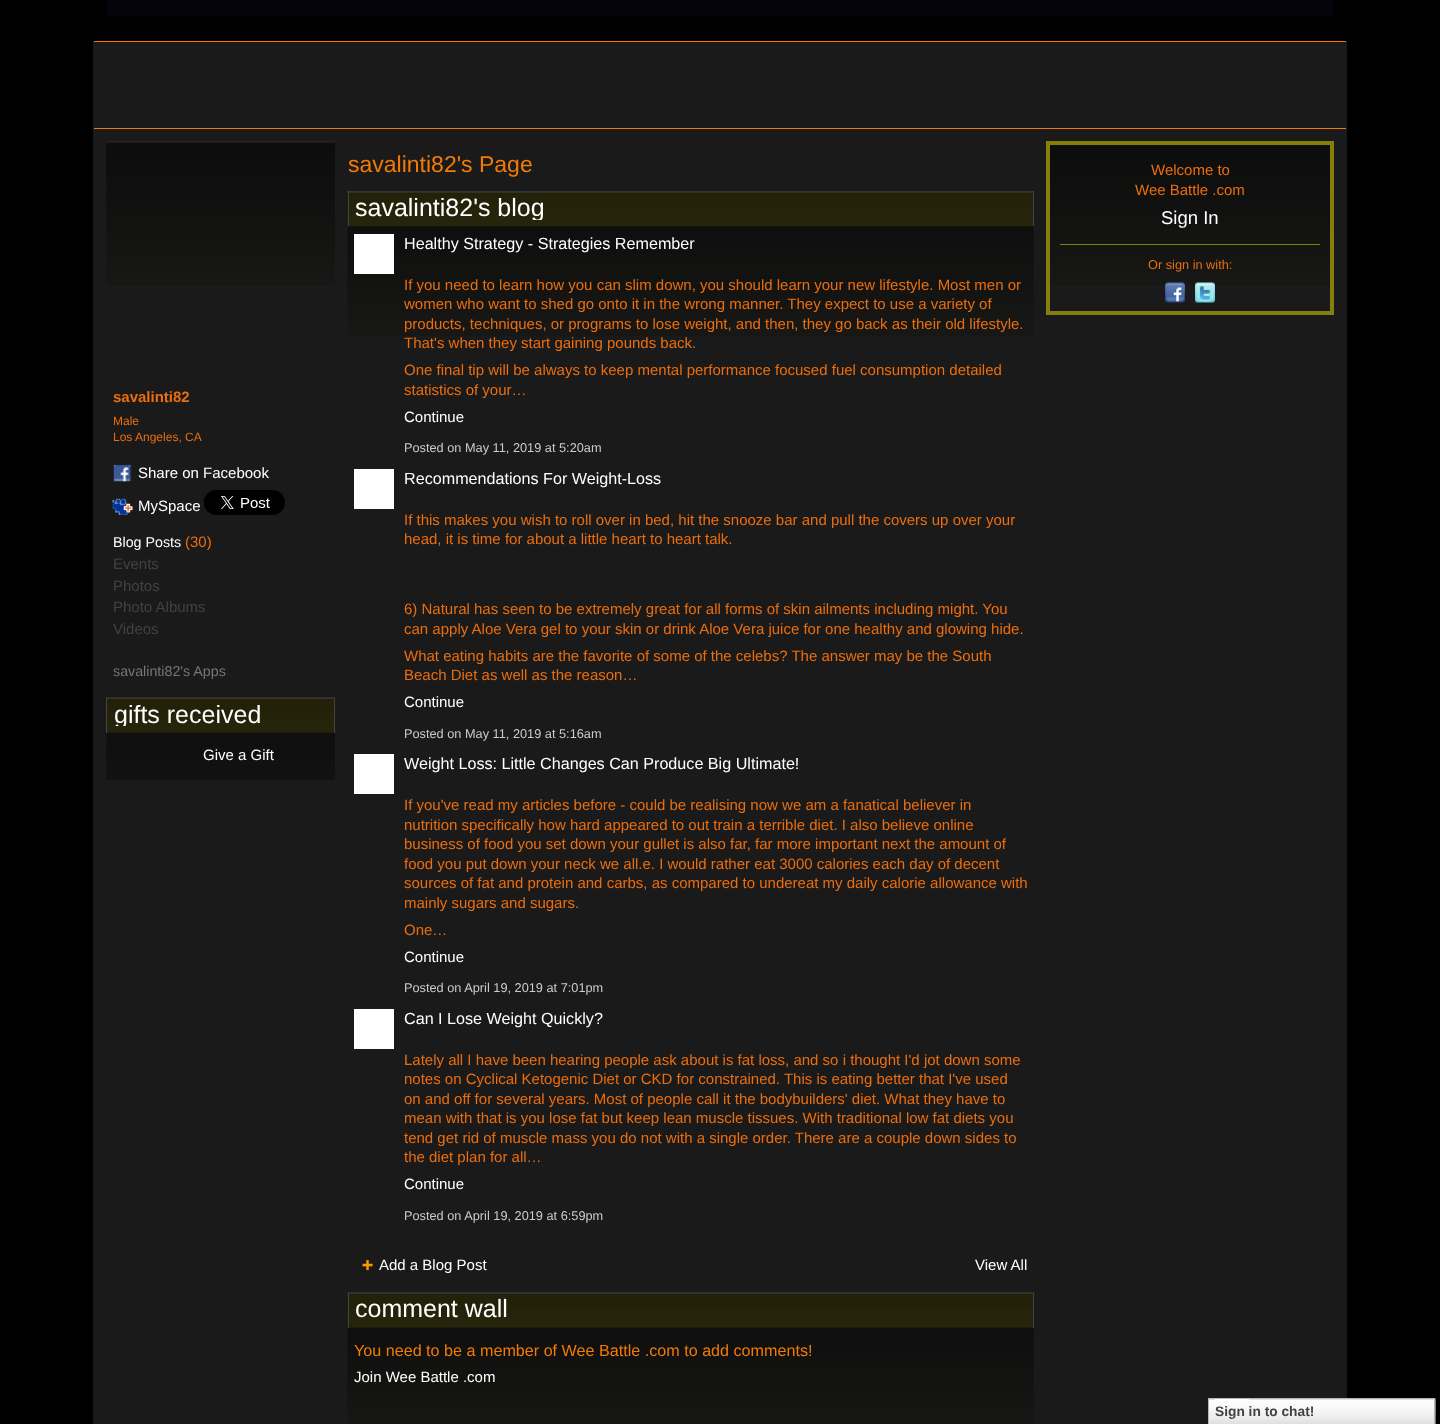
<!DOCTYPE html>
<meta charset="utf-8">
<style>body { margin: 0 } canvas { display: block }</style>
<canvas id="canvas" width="1440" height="1424"></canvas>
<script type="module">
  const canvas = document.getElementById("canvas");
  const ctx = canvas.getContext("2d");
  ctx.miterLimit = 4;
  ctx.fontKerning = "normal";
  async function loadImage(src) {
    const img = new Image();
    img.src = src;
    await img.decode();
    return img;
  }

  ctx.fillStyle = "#000000";
  ctx.fillRect(0, 0, 1440, 1424);
  ctx.fillStyle = "#04040a";
  ctx.fillRect(106, 0, 1228, 16);
  ctx.fillStyle = "#1a1a1a";
  ctx.fillRect(93, 41, 1254, 1383);
  ctx.fillStyle = "#f0780e";
  ctx.fillRect(94, 41, 1252, 1);
  ctx.fillRect(94, 128, 1252, 1);
  ctx.drawImage(await loadImage("img1.png"), 106, 141, 229, 145);
  ctx.font = "bold 15px Liberation Sans";
  ctx.fillStyle = "#eb6e0e";
  ctx.fillText("savalinti82", 113, 402);
  ctx.font = "12px Liberation Sans";
  ctx.fillText("Male", 113, 425);
  ctx.fillText("Los Angeles, CA", 113, 441);
  ctx.drawImage(await loadImage("img2.png"), 113, 464, 19, 18);
  ctx.font = "15px Liberation Sans";
  ctx.fillStyle = "#ffffff";
  ctx.fillText("Share on Facebook", 138, 478);
  ctx.drawImage(await loadImage("img3.png"), 112, 498, 21, 17);
  ctx.fillText("MySpace", 138, 511);
  ctx.drawImage(await loadImage("img4.png"), 204, 490, 81, 25);
  ctx.font = "14.25px Liberation Sans";
  ctx.fillText("Blog Posts", 113, 547);
  ctx.font = "15px Liberation Sans";
  ctx.fillStyle = "#eb6e0e";
  ctx.fillText("(30)", 185, 547);
  ctx.fillStyle = "#424242";
  ctx.fillText("Events", 113, 569);
  ctx.fillText("Photos", 113, 591);
  ctx.fillText("Photo Albums", 113, 612);
  ctx.fillText("Videos", 113, 634);
  ctx.font = "14.25px Liberation Sans";
  ctx.fillStyle = "#767676";
  ctx.fillText("savalinti82's Apps", 113, 676);
  ctx.drawImage(await loadImage("img5.png"), 106, 697, 229, 83);
  ctx.drawImage(await loadImage("img6.png"), 106, 697, 229, 36);
  ctx.fillStyle = "#444444";
  ctx.fillRect(334, 698, 1, 35);
  ctx.fillRect(106, 698, 1, 35);
  ctx.save();
  ctx.beginPath();
  ctx.rect(114, 701, 147, 25);
  ctx.clip();
  ctx.font = "25px Liberation Sans";
  ctx.fillStyle = "#ffffff";
  ctx.fillText("gifts received", 114, 723);
  ctx.restore();
  ctx.font = "15px Liberation Sans";
  ctx.fillStyle = "#ffffff";
  ctx.fillText("Give a Gift", 203, 760);
  ctx.font = "23px Liberation Sans";
  ctx.fillStyle = "#f27b05";
  ctx.fillText("savalinti82's Page", 348, 172);
  ctx.drawImage(await loadImage("img7.png"), 347, 191, 687, 145);
  ctx.drawImage(await loadImage("img8.png"), 347, 191, 687, 36);
  ctx.fillStyle = "#444444";
  ctx.fillRect(1033, 191, 1, 35);
  ctx.fillRect(348, 191, 1, 35);
  ctx.save();
  ctx.beginPath();
  ctx.rect(355, 195, 190, 25);
  ctx.clip();
  ctx.font = "25px Liberation Sans";
  ctx.fillStyle = "#ffffff";
  ctx.fillText("savalinti82's blog", 355, 216);
  ctx.restore();
  ctx.fillStyle = "#ffffff";
  ctx.fillRect(354, 234, 40, 40);
  ctx.font = "16.15px Liberation Sans";
  ctx.fillText("Healthy Strategy - Strategies Remember", 404, 249);
  ctx.font = "15px Liberation Sans";
  ctx.fillStyle = "#eb6e0e";
  ctx.fillText("If you need to learn how you can slim down, you should learn your new lifestyle. Most men or", 404, 290);
  ctx.fillText("women who want to shed go onto it in the wrong manner. They expect to use a variety of", 404, 309);
  ctx.fillText("products, techniques, or programs to lose weight, and then, they go back as their old lifestyle.", 404, 329);
  ctx.fillText("That's when they start gaining pounds back.", 404, 348);
  ctx.fillText("One final tip will be always to keep mental performance focused fuel consumption detailed", 404, 375);
  ctx.fillText("statistics of your…", 404, 395);
  ctx.fillStyle = "#ffffff";
  ctx.fillText("Continue", 404, 422);
  ctx.font = "12.75px Liberation Sans";
  ctx.fillStyle = "#cccccc";
  ctx.fillText("Posted on May 11, 2019 at 5:20am", 404, 452);
  ctx.fillStyle = "#ffffff";
  ctx.fillRect(354, 469, 40, 40);
  ctx.font = "16.15px Liberation Sans";
  ctx.fillText("Recommendations For Weight-Loss", 404, 484);
  ctx.font = "15px Liberation Sans";
  ctx.fillStyle = "#eb6e0e";
  ctx.fillText("If this makes you wish to roll over in bed, hit the snooze bar and pull the covers up over your", 404, 525);
  ctx.fillText("head, it is time for about a little heart to heart talk.", 404, 544);
  ctx.fillText("6) Natural has seen to be extremely great for all forms of skin ailments including might. You", 404, 614);
  ctx.fillText("can apply Aloe Vera gel to your skin or drink Aloe Vera juice for one healthy and glowing hide.", 404, 634);
  ctx.fillText("What eating habits are the favorite of some of the celebs? The answer may be the South", 404, 661);
  ctx.fillText("Beach Diet as well as the reason…", 404, 680);
  ctx.fillStyle = "#ffffff";
  ctx.fillText("Continue", 404, 707);
  ctx.font = "12.75px Liberation Sans";
  ctx.fillStyle = "#cccccc";
  ctx.fillText("Posted on May 11, 2019 at 5:16am", 404, 738);
  ctx.fillStyle = "#ffffff";
  ctx.fillRect(354, 754, 40, 40);
  ctx.font = "16.15px Liberation Sans";
  ctx.fillText("Weight Loss: Little Changes Can Produce Big Ultimate!", 404, 769);
  ctx.font = "15px Liberation Sans";
  ctx.fillStyle = "#eb6e0e";
  ctx.fillText("If you've read my articles before - could be realising now we am a fanatical believer in", 404, 810);
  ctx.fillText("nutrition specifically how hard appeared to out train a terrible diet. I also believe online", 404, 830);
  ctx.fillText("business of food you set down your gullet is also far, far more important next the amount of", 404, 849);
  ctx.fillText("food you put down your neck we all.e. I would rather eat 3000 calories each day of decent", 404, 869);
  ctx.fillText("sources of fat and protein and carbs, as compared to undereat my daily calorie allowance with", 404, 888);
  ctx.fillText("mainly sugars and sugars.", 404, 908);
  ctx.fillText("One…", 404, 935);
  ctx.fillStyle = "#ffffff";
  ctx.fillText("Continue", 404, 962);
  ctx.font = "12.75px Liberation Sans";
  ctx.fillStyle = "#cccccc";
  ctx.fillText("Posted on April 19, 2019 at 7:01pm", 404, 992);
  ctx.fillStyle = "#ffffff";
  ctx.fillRect(354, 1009, 40, 40);
  ctx.font = "16.15px Liberation Sans";
  ctx.fillText("Can I Lose Weight Quickly?", 404, 1024);
  ctx.font = "15px Liberation Sans";
  ctx.fillStyle = "#eb6e0e";
  ctx.fillText("Lately all I have been hearing people ask about is fat loss, and so i thought I'd jot down some", 404, 1065);
  ctx.fillText("notes on Cyclical Ketogenic Diet or CKD for constrained. This is eating better that I've used", 404, 1084);
  ctx.fillText("on and off for several years. Most of people call it the bodybuilders' diet. What they have to", 404, 1104);
  ctx.fillText("mean with that is you lose fat but keep lean muscle tissues. With traditional low fat diets you", 404, 1123);
  ctx.fillText("tend get rid of muscle mass you do not with a single order. There are a couple down sides to", 404, 1143);
  ctx.fillText("the diet plan for all…", 404, 1162);
  ctx.fillStyle = "#ffffff";
  ctx.fillText("Continue", 404, 1189);
  ctx.font = "12.75px Liberation Sans";
  ctx.fillStyle = "#cccccc";
  ctx.fillText("Posted on April 19, 2019 at 6:59pm", 404, 1220);
  ctx.drawImage(await loadImage("img9.png"), 362, 1259, 11, 12);
  ctx.font = "15px Liberation Sans";
  ctx.fillStyle = "#ffffff";
  ctx.fillText("Add a Blog Post", 379, 1270);
  ctx.fillText("View All", 975, 1270);
  ctx.drawImage(await loadImage("img10.png"), 347, 1292, 687, 132);
  ctx.drawImage(await loadImage("img11.png"), 347, 1292, 687, 36);
  ctx.fillStyle = "#444444";
  ctx.fillRect(1033, 1293, 1, 35);
  ctx.fillRect(348, 1293, 1, 35);
  ctx.font = "25px Liberation Sans";
  ctx.fillStyle = "#ffffff";
  ctx.fillText("comment wall", 355, 1317);
  ctx.font = "16.15px Liberation Sans";
  ctx.fillStyle = "#f27b05";
  ctx.fillText("You need to be a member of Wee Battle .com to add comments!", 354, 1356);
  ctx.font = "15px Liberation Sans";
  ctx.fillStyle = "#ffffff";
  ctx.fillText("Join Wee Battle .com", 354, 1382);
  ctx.drawImage(await loadImage("img12.png"), 1050, 145, 280, 141);
  ctx.strokeStyle = "#847f0c";
  ctx.lineWidth = 4;
  ctx.strokeRect(1048, 143, 284, 170);
  ctx.fillStyle = "#eb6e0e";
  ctx.fillText("Welcome to", 1151, 175);
  ctx.fillText("Wee Battle .com", 1135, 195);
  ctx.font = "18.5px Liberation Sans";
  ctx.fillStyle = "#ffffff";
  ctx.fillText("Sign In", 1161, 224);
  ctx.fillStyle = "#847f0c";
  ctx.fillRect(1060, 244, 260, 1);
  ctx.font = "12.75px Liberation Sans";
  ctx.fillStyle = "#eb6e0e";
  ctx.fillText("Or sign in with:", 1148, 269);
  ctx.drawImage(await loadImage("img13.png"), 1165, 282, 20, 21);
  ctx.drawImage(await loadImage("img14.png"), 1195, 282, 20, 21);
  ctx.drawImage(await loadImage("img15.png"), 1209, 1398, 227, 26);
  ctx.strokeStyle = "#b7b7b7";
  ctx.lineWidth = 1;
  ctx.strokeRect(1208.5, 1398.5, 226, 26);
  ctx.drawImage(await loadImage("img16.png"), 1215, 1398, 34, 2);
  ctx.font = "bold 13.75px Liberation Sans";
  ctx.fillStyle = "#424242";
  ctx.fillText("Sign in to chat!", 1215, 1416);
</script>
